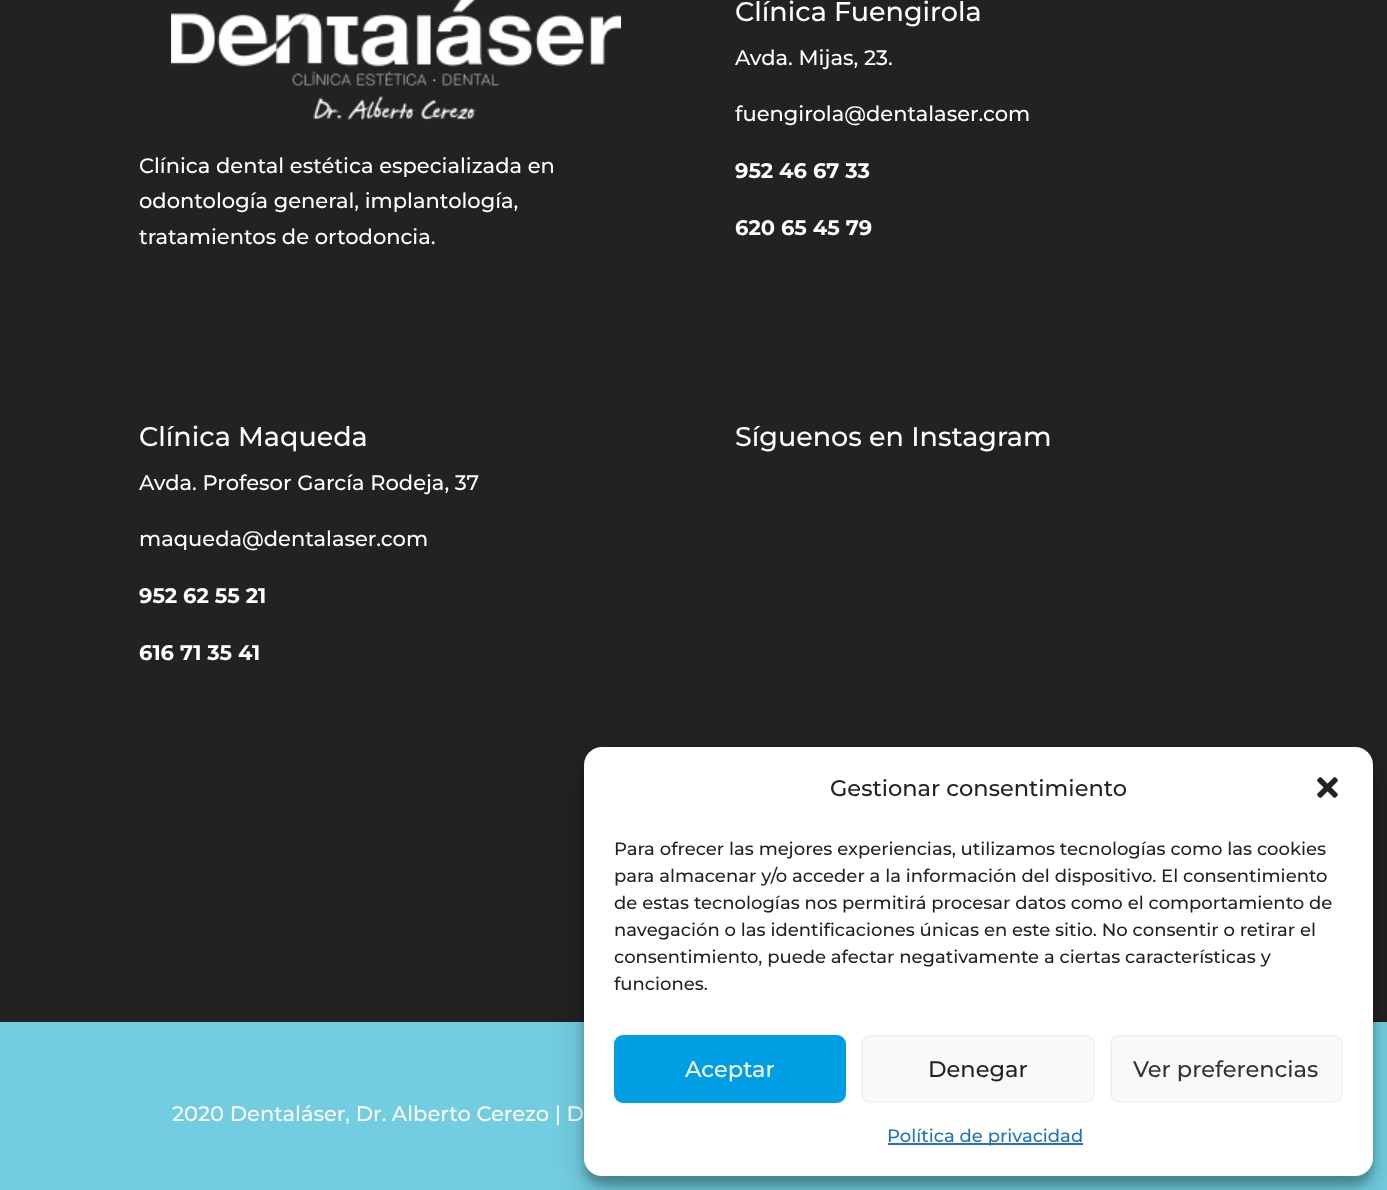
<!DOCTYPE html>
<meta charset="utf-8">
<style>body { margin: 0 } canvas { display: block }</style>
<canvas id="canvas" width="1387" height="1190"></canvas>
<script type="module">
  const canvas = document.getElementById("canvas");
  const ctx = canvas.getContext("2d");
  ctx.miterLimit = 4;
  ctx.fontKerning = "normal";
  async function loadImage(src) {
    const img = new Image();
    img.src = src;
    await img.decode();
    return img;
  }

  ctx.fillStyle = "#222222";
  ctx.fillRect(0, 0, 1387, 1190);
  ctx.drawImage(await loadImage("img1.png"), 171, 0, 450, 121);
  ctx.font = "500 21px Montserrat";
  ctx.fillStyle = "#ffffff";
  ctx.fillText("Clínica dental estética especializada en", 139, 173);
  ctx.fillText("odontología general, implantología,", 139, 208);
  ctx.fillText("tratamientos de ortodoncia.", 139, 244);
  ctx.font = "500 27px Montserrat";
  ctx.fillText("Clínica Fuengirola", 735, 21);
  ctx.font = "500 21px Montserrat";
  ctx.fillText("Avda. Mijas, 23.", 735, 65);
  ctx.fillText("fuengirola@dentalaser.com", 735, 121);
  ctx.font = "bold 21px Montserrat";
  ctx.fillText("952 46 67 33", 735, 178);
  ctx.fillText("620 65 45 79", 735, 235);
  ctx.font = "500 27px Montserrat";
  ctx.fillText("Clínica Maqueda", 139, 446);
  ctx.font = "500 21px Montserrat";
  ctx.fillText("Avda. Profesor García Rodeja, 37", 139, 490);
  ctx.fillText("maqueda@dentalaser.com", 139, 546);
  ctx.font = "bold 21px Montserrat";
  ctx.fillText("952 62 55 21", 139, 603);
  ctx.fillText("616 71 35 41", 139, 660);
  ctx.font = "500 27px Montserrat";
  ctx.fillText("Síguenos en Instagram", 735, 446);
  ctx.fillStyle = "#71cddf";
  ctx.fillRect(0, 1022, 1387, 168);
  ctx.font = "500 21px Montserrat";
  ctx.fillStyle = "#ffffff";
  ctx.fillText("2020 Dentaláser, Dr. Alberto Cerezo | D", 172, 1121);
  ctx.fillStyle = "rgba(0, 0, 0, 0.23)";
  ctx.filter = "blur(4.5px)";
  ctx.beginPath();
  ctx.roundRect(584, 756, 789, 429, 18);
  ctx.fill();
  ctx.filter = "none";
  ctx.fillStyle = "rgba(0, 0, 0, 0.19)";
  ctx.filter = "blur(15px)";
  ctx.beginPath();
  ctx.roundRect(584, 762, 789, 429, 18);
  ctx.fill();
  ctx.filter = "none";
  ctx.fillStyle = "#ffffff";
  ctx.beginPath();
  ctx.roundRect(584, 747, 789, 429, 18);
  ctx.fill();
  ctx.font = "500 22.5px Montserrat";
  ctx.fillStyle = "#222222";
  ctx.fillText("Gestionar consentimiento", 830, 796);
  ctx.drawImage(await loadImage("img2.png"), 1317, 777, 21, 21);
  ctx.font = "500 18px Montserrat";
  ctx.fillText("Para ofrecer las mejores experiencias, utilizamos tecnologías como las cookies", 614, 855);
  ctx.fillText("para almacenar y/o acceder a la información del dispositivo. El consentimiento", 614, 882);
  ctx.fillText("de estas tecnologías nos permitirá procesar datos como el comportamiento de", 614, 909);
  ctx.fillText("navegación o las identificaciones únicas en este sitio. No consentir o retirar el", 614, 936);
  ctx.fillText("consentimiento, puede afectar negativamente a ciertas características y", 614, 963);
  ctx.fillText("funciones.", 614, 990);
  ctx.fillStyle = "#009ee2";
  ctx.beginPath();
  ctx.roundRect(615, 1036, 230, 66, 8);
  ctx.fill();
  ctx.strokeStyle = "#009ee2";
  ctx.lineWidth = 2;
  ctx.stroke();
  ctx.font = "500 22.5px Montserrat";
  ctx.fillStyle = "#ffffff";
  ctx.fillText("Aceptar", 685, 1077);
  ctx.fillStyle = "#f9f9f9";
  ctx.beginPath();
  ctx.roundRect(862, 1036, 232, 66, 8);
  ctx.fill();
  ctx.strokeStyle = "#f2f2f2";
  ctx.stroke();
  ctx.fillStyle = "#222222";
  ctx.fillText("Denegar", 928, 1077);
  ctx.fillStyle = "#f9f9f9";
  ctx.beginPath();
  ctx.roundRect(1111, 1036, 231, 66, 8);
  ctx.fill();
  ctx.stroke();
  ctx.fillStyle = "#333333";
  ctx.fillText("Ver preferencias", 1133, 1077);
  ctx.fillStyle = "#1e73be";
  ctx.fillRect(888, 1143, 195, 2);
  ctx.font = "500 18px Montserrat";
  ctx.fillText("Política de privacidad", 887, 1142);
</script>
